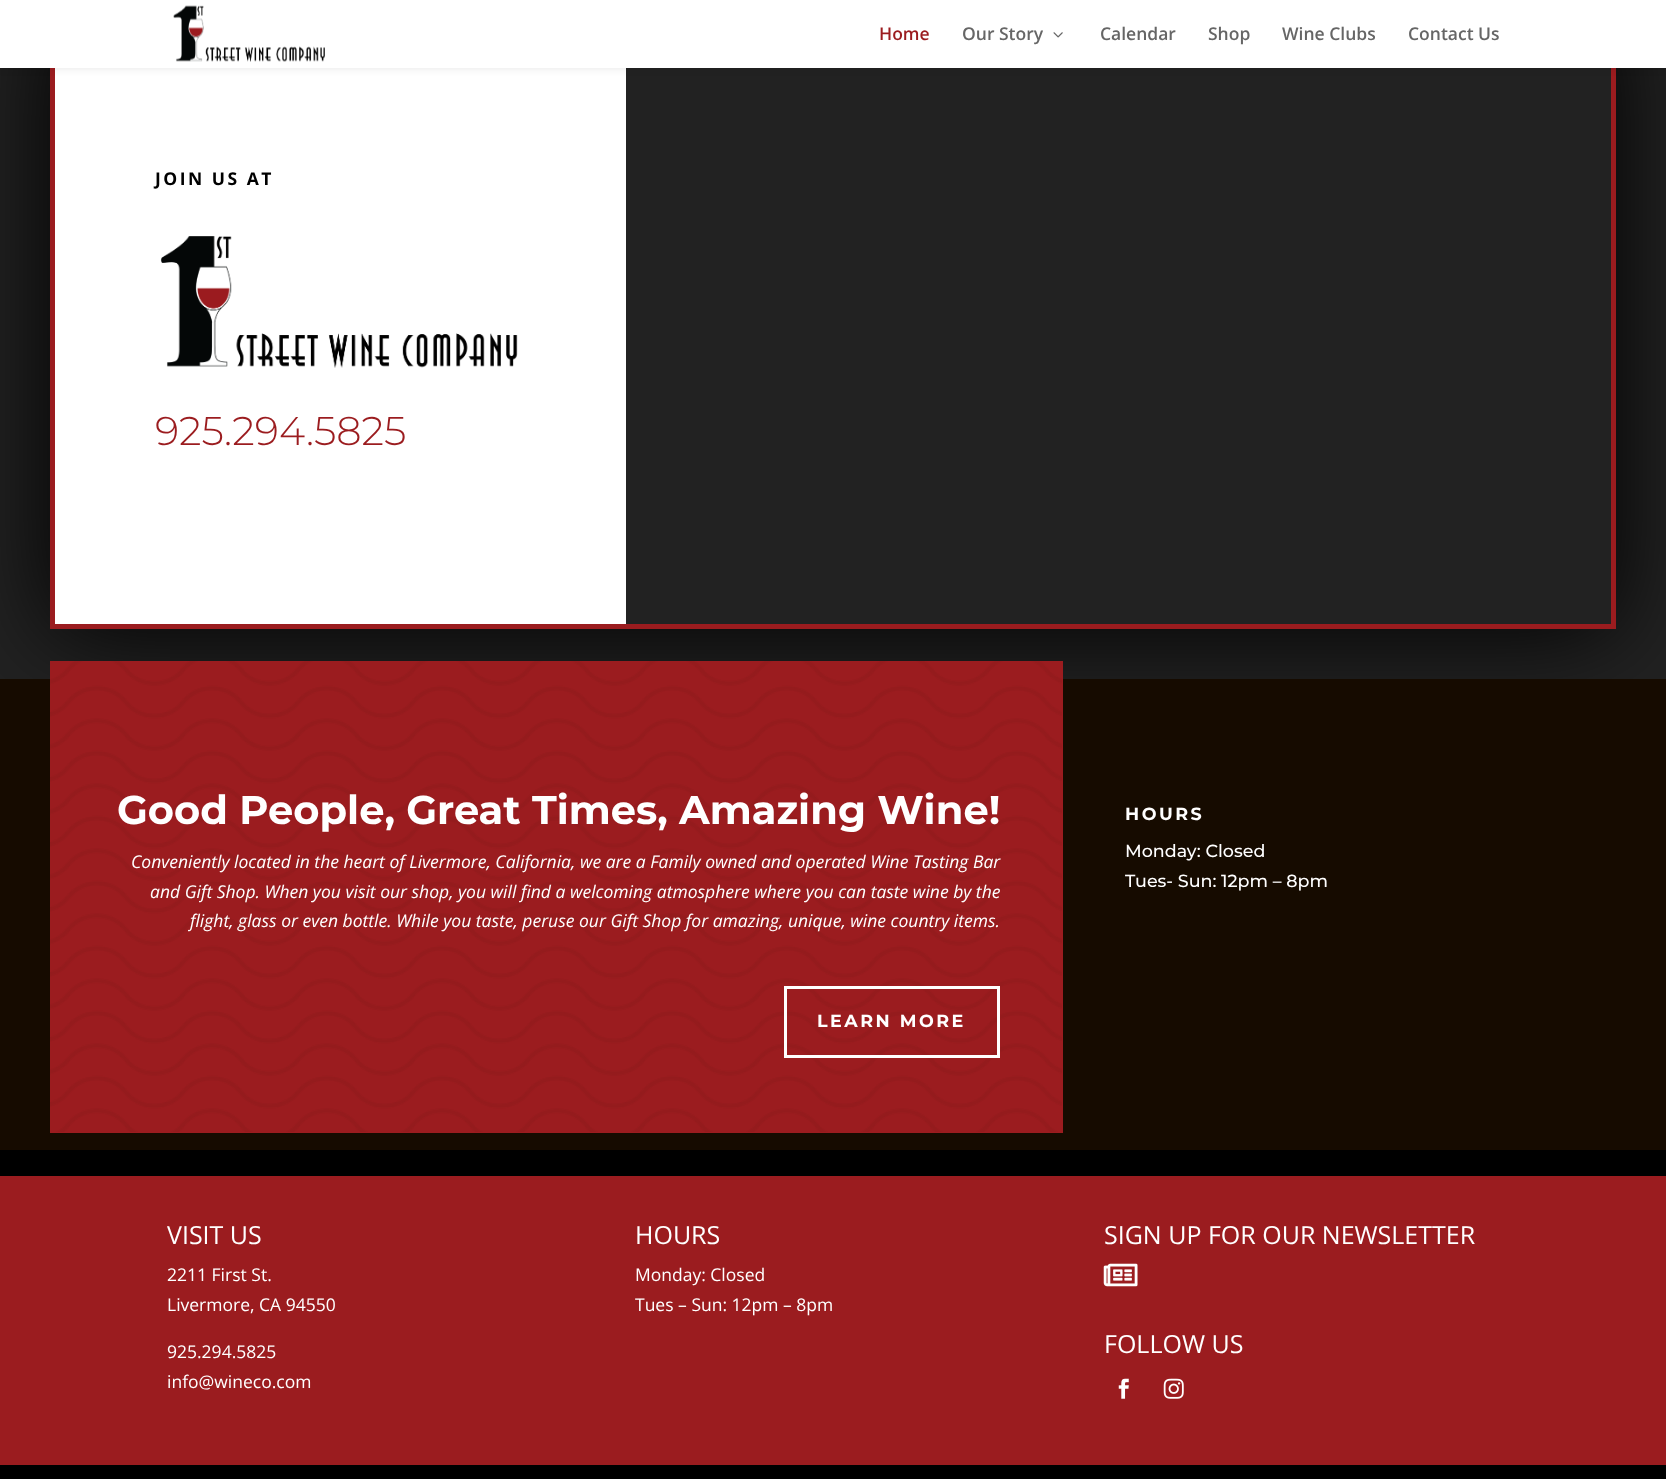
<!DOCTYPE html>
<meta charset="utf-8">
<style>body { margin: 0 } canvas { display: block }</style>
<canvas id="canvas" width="1666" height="1479"></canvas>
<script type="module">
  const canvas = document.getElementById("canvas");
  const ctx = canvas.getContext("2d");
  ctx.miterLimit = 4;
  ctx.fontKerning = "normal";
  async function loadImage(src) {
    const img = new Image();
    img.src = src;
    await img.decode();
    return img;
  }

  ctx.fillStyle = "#000000";
  ctx.fillRect(0, 0, 1666, 1479);
  ctx.fillStyle = "#222222";
  ctx.fillRect(0, 68, 1666, 611);
  ctx.save();
  ctx.beginPath();
  ctx.moveTo(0, 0);
  ctx.lineTo(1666, 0);
  ctx.lineTo(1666, 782);
  ctx.lineTo(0, 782);
  ctx.closePath();
  ctx.moveTo(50, 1);
  ctx.lineTo(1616, 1);
  ctx.lineTo(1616, 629);
  ctx.lineTo(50, 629);
  ctx.closePath();
  ctx.clip("evenodd");
  ctx.fillStyle = "#000000";
  ctx.filter = "blur(50px)";
  ctx.beginPath();
  ctx.rect(50, 4, 1566, 627);
  ctx.fill();
  ctx.filter = "none";
  ctx.restore();
  ctx.strokeStyle = "#9b1c1f";
  ctx.lineWidth = 5;
  ctx.strokeRect(52.5, 3.5, 1561, 623);
  ctx.fillStyle = "#ffffff";
  ctx.fillRect(55, 68, 571, 556);
  ctx.fillStyle = "rgba(0, 0, 0, 0.1)";
  ctx.filter = "blur(4.5px)";
  ctx.beginPath();
  ctx.rect(0, 0, 1666, 68);
  ctx.fill();
  ctx.filter = "none";
  ctx.fillStyle = "#ffffff";
  ctx.fillRect(0, 0, 1666, 68);
  ctx.drawImage(await loadImage("img1.png"), 173, 5, 152, 57);
  ctx.font = "600 17.5px Open Sans";
  ctx.fillStyle = "#9b1c1f";
  ctx.fillText("Home", 879, 40);
  ctx.fillStyle = "#666666";
  ctx.fillText("Our Story", 962, 40);
  ctx.drawImage(await loadImage("img2.png"), 1053, 32, 10, 6);
  ctx.fillText("Calendar", 1100, 40);
  ctx.fillText("Shop", 1208, 40);
  ctx.fillText("Wine Clubs", 1282, 40);
  ctx.fillText("Contact Us", 1408, 40);
  ctx.letterSpacing = "2.5px";
  ctx.font = "bold 17.5px Open Sans";
  ctx.fillStyle = "#000000";
  ctx.fillText("JOIN US AT", 155, 185);
  ctx.drawImage(await loadImage("img3.png"), 160, 236, 358, 132);
  ctx.letterSpacing = "0px";
  ctx.font = "100 40px 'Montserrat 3'";
  ctx.fillStyle = "#9b1c1f";
  ctx.fillText("925.294.5825", 155, 445);
  ctx.fillStyle = "#160b00";
  ctx.fillRect(0, 679, 1666, 471);
  ctx.fillStyle = "#9b1c1f";
  ctx.fillRect(50, 661, 1013, 472);
  ctx.drawImage(await loadImage("img4.png"), 50, 661, 1012, 471);
  ctx.font = "100 40px Montserrat";
  ctx.fillStyle = "#ffffff";
  ctx.fillText("Good People, Great Times, Amazing Wine!", 117, 824);
  ctx.font = "italic 17.5px Open Sans";
  ctx.fillText("Conveniently located in the heart of Livermore, California, we are a Family owned and operated Wine Tasting Bar", 131, 868);
  ctx.fillText("and Gift Shop. When you visit our shop, you will find a welcoming atmosphere where you can taste wine by the", 150, 898);
  ctx.fillText("flight, glass or even bottle. While you taste, peruse our Gift Shop for amazing, unique, wine country items.", 190, 927);
  ctx.strokeStyle = "#ffffff";
  ctx.lineWidth = 3;
  ctx.strokeRect(785.5, 987.5, 213, 69);
  ctx.letterSpacing = "2.5px";
  ctx.font = "100 17.5px Montserrat";
  ctx.fillText("LEARN MORE", 817, 1027);
  ctx.fillText("HOURS", 1125, 820);
  ctx.letterSpacing = "0px";
  ctx.font = "100 17.5px 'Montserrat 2'";
  ctx.fillText("Monday: Closed", 1125, 857);
  ctx.fillText("Tues- Sun: 12pm – 8pm", 1125, 887);
  ctx.fillStyle = "#9b1c1f";
  ctx.fillRect(0, 1176, 1666, 289);
  ctx.font = "25px Open Sans";
  ctx.fillStyle = "#ffffff";
  ctx.fillText("VISIT US", 167, 1244);
  ctx.font = "17.5px Open Sans";
  ctx.fillText("2211 First St.", 167, 1281);
  ctx.fillText("Livermore, CA 94550", 167, 1311);
  ctx.fillText("925.294.5825", 167, 1358);
  ctx.fillText("info@wineco.com", 167, 1388);
  ctx.font = "25px Open Sans";
  ctx.fillText("HOURS", 635, 1244);
  ctx.font = "17.5px Open Sans";
  ctx.fillText("Monday: Closed", 635, 1281);
  ctx.fillText("Tues – Sun: 12pm – 8pm", 635, 1311);
  ctx.font = "25px Open Sans";
  ctx.fillText("SIGN UP FOR OUR NEWSLETTER", 1104, 1244);
  ctx.drawImage(await loadImage("img5.png"), 1103, 1263, 35, 24);
  ctx.fillText("FOLLOW US", 1104, 1353);
  ctx.drawImage(await loadImage("img6.png"), 1118, 1378, 11, 21);
  ctx.drawImage(await loadImage("img7.png"), 1163, 1378, 21, 21);
</script>
